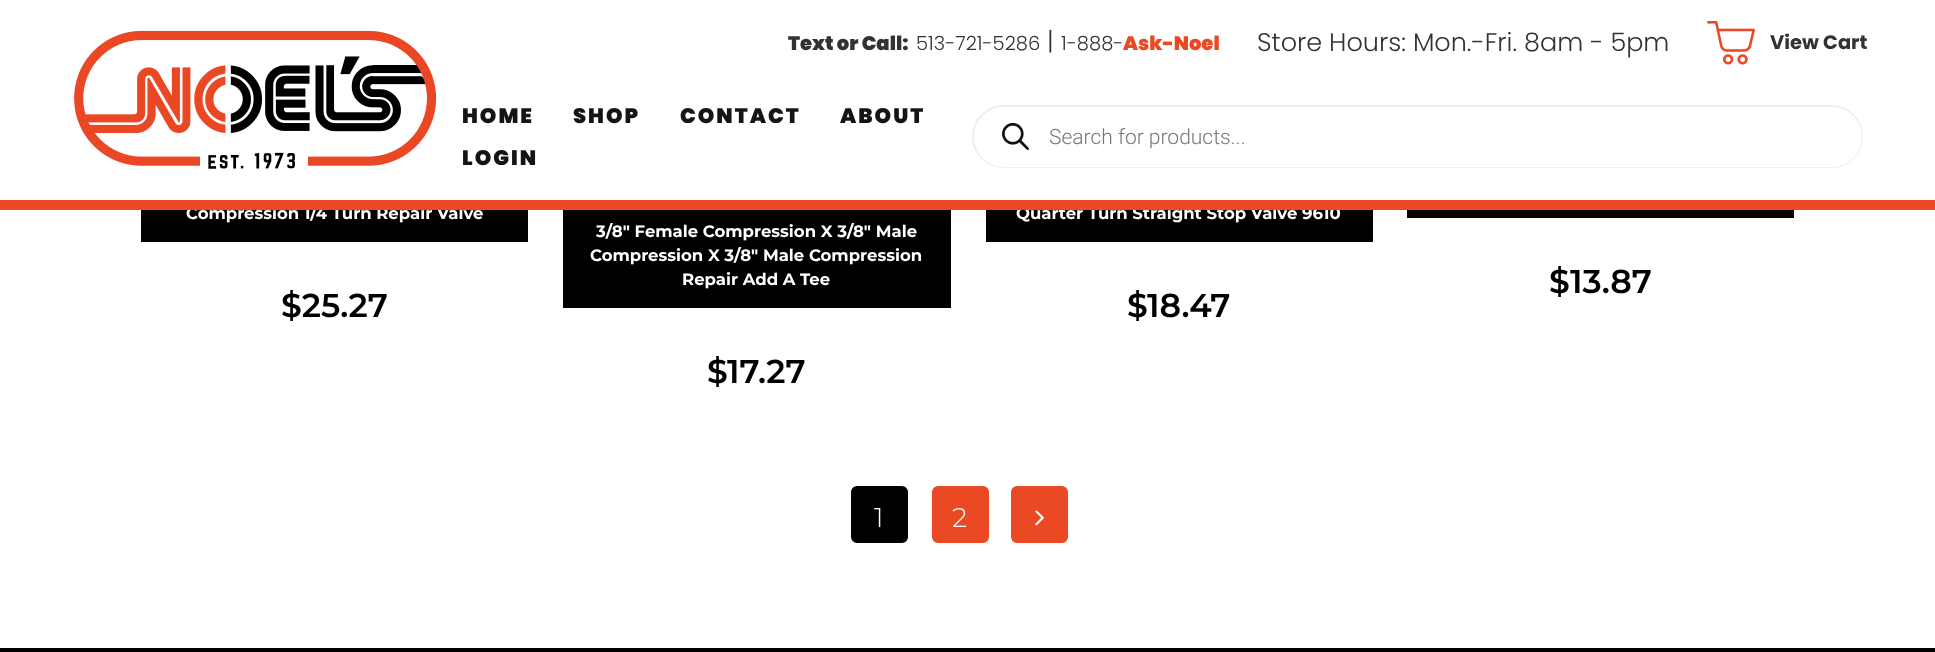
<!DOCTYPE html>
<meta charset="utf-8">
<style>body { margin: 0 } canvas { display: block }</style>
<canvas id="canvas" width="1935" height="652"></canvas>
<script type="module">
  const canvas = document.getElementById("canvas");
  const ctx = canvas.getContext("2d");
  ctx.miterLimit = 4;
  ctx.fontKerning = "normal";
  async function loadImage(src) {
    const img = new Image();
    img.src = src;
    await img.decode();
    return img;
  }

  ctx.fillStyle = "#ffffff";
  ctx.fillRect(0, 0, 1935, 652);
  ctx.fillStyle = "#000000";
  ctx.fillRect(141, 210, 387, 32);
  ctx.font = "bold 16.5px Montserrat";
  ctx.fillStyle = "#ffffff";
  ctx.fillText("Compression 1/4 Turn Repair Valve", 186, 219);
  ctx.fillStyle = "#000000";
  ctx.fillRect(986, 210, 387, 32);
  ctx.fillStyle = "#ffffff";
  ctx.fillText("Quarter Turn Straight Stop Valve 9610", 1016, 219);
  ctx.fillStyle = "#eb4824";
  ctx.fillRect(0, 200, 1935, 10);
  ctx.drawImage(await loadImage("img1.png"), 74, 30, 363, 139);
  ctx.font = "900 19.5px Poppins";
  ctx.fillStyle = "#323232";
  ctx.fillText("Text or Call:", 788, 50);
  ctx.font = "300 19.5px Poppins";
  ctx.fillText("513-721-5286", 916, 50);
  ctx.font = "300 25.5px Poppins";
  ctx.fillText("|", 1047, 50);
  ctx.font = "300 19.5px Poppins";
  ctx.fillText("1-888-", 1061, 50);
  ctx.font = "900 19.5px Poppins";
  ctx.fillStyle = "#eb4824";
  ctx.fillText("Ask-Noel", 1123, 50);
  ctx.font = "300 25.5px Poppins";
  ctx.fillStyle = "#323232";
  ctx.fillText("Store Hours: Mon.-Fri. 8am - 5pm", 1257, 51);
  ctx.drawImage(await loadImage("img2.png"), 1707, 21, 48, 44);
  ctx.font = "bold 19.5px Poppins";
  ctx.fillText("View Cart", 1770, 49);
  ctx.letterSpacing = "2px";
  ctx.font = "900 21px Poppins";
  ctx.fillStyle = "#131415";
  ctx.fillText("HOME", 462, 123);
  ctx.fillText("SHOP", 573, 123);
  ctx.fillText("CONTACT", 680, 123);
  ctx.fillText("ABOUT", 840, 123);
  ctx.fillText("LOGIN", 462, 165);
  ctx.beginPath();
  ctx.roundRect(973, 106, 889, 61, 30.5);
  ctx.strokeStyle = "#eeeeee";
  ctx.lineWidth = 2;
  ctx.stroke();
  ctx.fillStyle = "#ffffff";
  ctx.beginPath();
  ctx.roundRect(974, 107, 888, 60, 30);
  ctx.fill();
  ctx.drawImage(await loadImage("img3.png"), 1002, 123, 27, 27);
  ctx.letterSpacing = "0px";
  ctx.font = "300 21px Roboto";
  ctx.fillStyle = "#777777";
  ctx.fillText("Search for products...", 1049, 144);
  ctx.font = "600 33px Montserrat";
  ctx.fillStyle = "#000000";
  ctx.fillText("$25.27", 281, 317);
  ctx.fillRect(563, 210, 388, 98);
  ctx.font = "bold 16.5px Montserrat";
  ctx.fillStyle = "#ffffff";
  ctx.fillText("3/8″ Female Compression X 3/8″ Male", 596, 237);
  ctx.fillText("Compression X 3/8″ Male Compression", 590, 261);
  ctx.fillText("Repair Add A Tee", 682, 285);
  ctx.font = "600 33px Montserrat";
  ctx.fillStyle = "#000000";
  ctx.fillText("$", 707, 383);
  ctx.fillText("17.27", 727, 383);
  ctx.fillText("$", 1127, 317);
  ctx.fillText("18.47", 1147, 317);
  ctx.fillRect(1407, 210, 387, 8);
  ctx.fillText("$", 1549, 293);
  ctx.fillText("13.87", 1570, 293);
  ctx.beginPath();
  ctx.roundRect(852.5, 487.5, 54, 54, 4.5);
  ctx.fill();
  ctx.strokeStyle = "#000000";
  ctx.lineWidth = 3;
  ctx.stroke();
  ctx.font = "300 27px Montserrat";
  ctx.fillStyle = "#ffffff";
  ctx.fillText("1", 874, 527);
  ctx.fillStyle = "#eb4824";
  ctx.beginPath();
  ctx.roundRect(933.5, 487.5, 54, 54, 4.5);
  ctx.fill();
  ctx.strokeStyle = "#eb4824";
  ctx.stroke();
  ctx.fillStyle = "#ffffff";
  ctx.fillText("2", 952, 527);
  ctx.fillStyle = "#eb4824";
  ctx.beginPath();
  ctx.roundRect(1012.5, 487.5, 54, 54, 4.5);
  ctx.fill();
  ctx.stroke();
  ctx.drawImage(await loadImage("img4.png"), 1035, 510, 9, 16);
  ctx.fillStyle = "#000000";
  ctx.fillRect(0, 648, 1935, 4);
</script>
